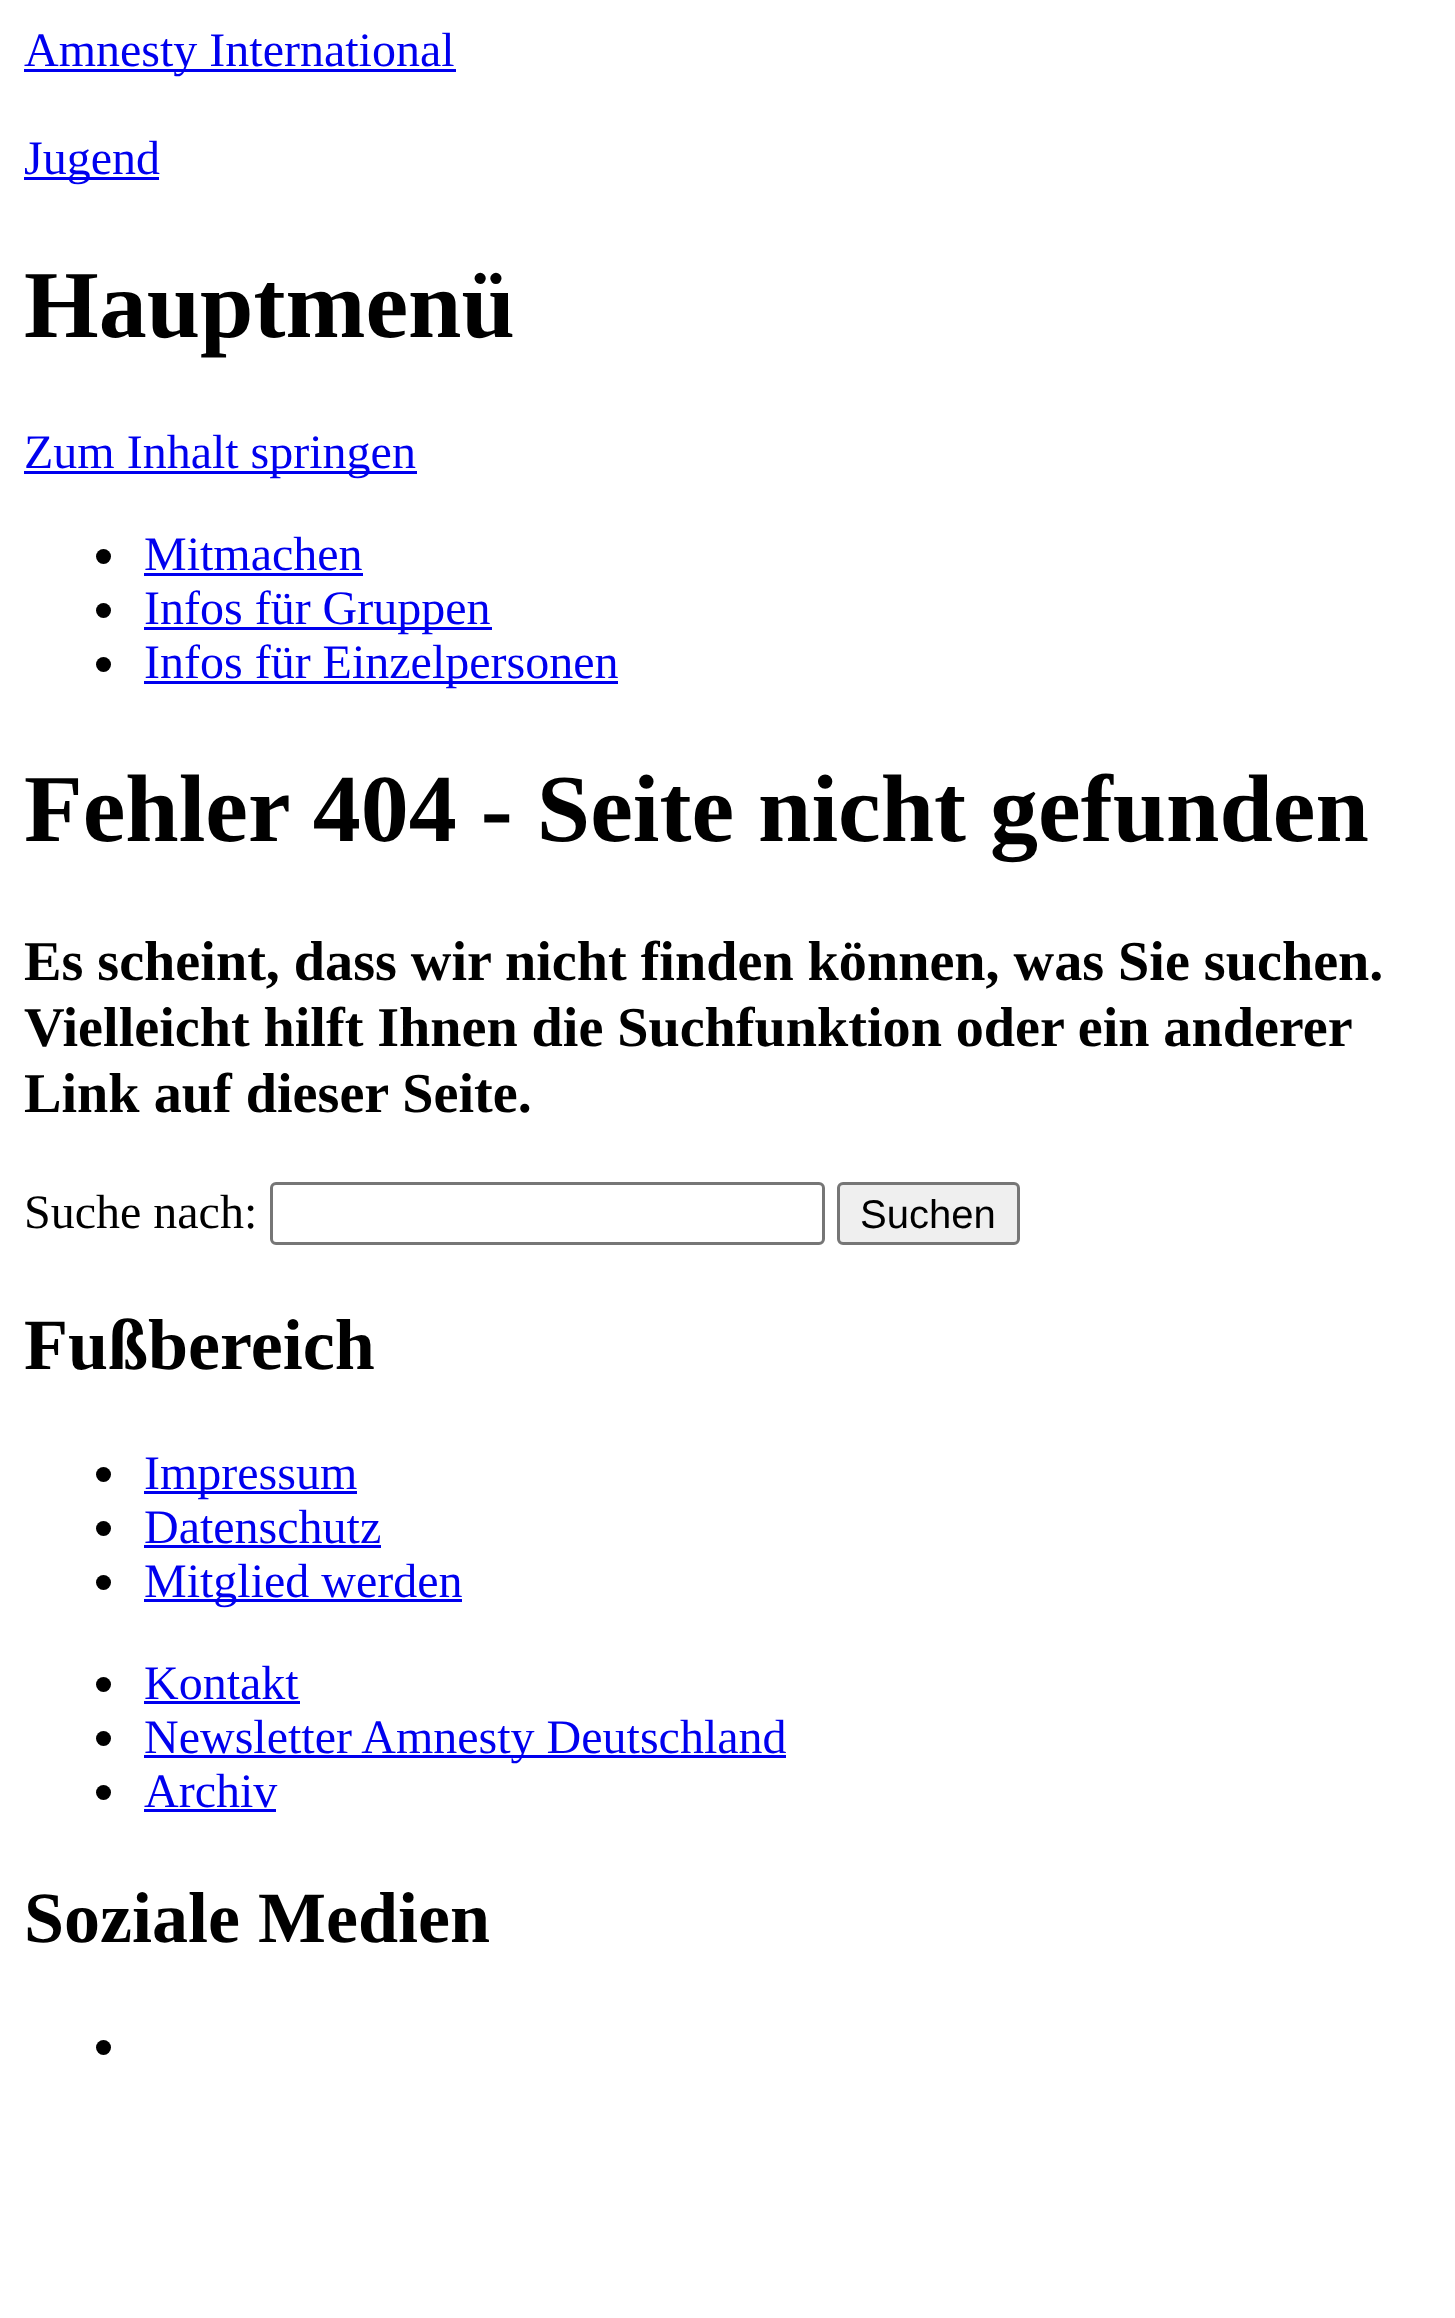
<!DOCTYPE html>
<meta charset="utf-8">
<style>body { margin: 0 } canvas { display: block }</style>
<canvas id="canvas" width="1455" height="2318"></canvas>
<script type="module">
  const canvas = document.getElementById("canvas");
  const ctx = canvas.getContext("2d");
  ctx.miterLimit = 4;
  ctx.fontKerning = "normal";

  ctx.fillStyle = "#ffffff";
  ctx.fillRect(0, 0, 1455, 2318);
  ctx.fillStyle = "#0000ee";
  ctx.fillRect(24, 69, 432, 3);
  ctx.font = "48px Liberation Serif";
  ctx.fillText("Amnesty International", 24, 66);
  ctx.fillRect(24, 177, 135, 3);
  ctx.fillText("Jugend", 24, 174);
  ctx.font = "bold 96px Liberation Serif";
  ctx.fillStyle = "#000000";
  ctx.fillText("Hauptmenü", 24, 337);
  ctx.fillStyle = "#0000ee";
  ctx.fillRect(24, 471, 393, 3);
  ctx.font = "48px Liberation Serif";
  ctx.fillText("Zum Inhalt springen", 24, 468);
  ctx.fillStyle = "#000000";
  ctx.beginPath();
  ctx.arc(103.5, 556.5, 7.5, 0, Math.PI * 2);
  ctx.fill();
  ctx.fillStyle = "#0000ee";
  ctx.fillText("Mitmachen", 144, 570);
  ctx.fillRect(144, 573, 219, 3);
  ctx.fillStyle = "#000000";
  ctx.beginPath();
  ctx.arc(103.5, 610.5, 7.5, 0, Math.PI * 2);
  ctx.fill();
  ctx.fillStyle = "#0000ee";
  ctx.fillRect(144, 627, 348, 3);
  ctx.fillText("Infos für Gruppen", 144, 624);
  ctx.fillStyle = "#000000";
  ctx.beginPath();
  ctx.arc(103.5, 664.5, 7.5, 0, Math.PI * 2);
  ctx.fill();
  ctx.fillStyle = "#0000ee";
  ctx.fillRect(144, 681, 474, 3);
  ctx.fillText("Infos für Einzelpersonen", 144, 678);
  ctx.font = "bold 96px Liberation Serif";
  ctx.fillStyle = "#000000";
  ctx.fillText("Fehler 404 - Seite nicht gefunden", 24, 841);
  ctx.wordSpacing = "-0.1px";
  ctx.font = "bold 56.2px Liberation Serif";
  ctx.fillText("Es scheint, dass wir nicht finden können, was Sie suchen.", 24, 980);
  ctx.wordSpacing = "-0.25px";
  ctx.fillText("Vielleicht hilft Ihnen die Suchfunktion oder ein anderer", 24, 1046);
  ctx.wordSpacing = "0px";
  ctx.fillText("Link auf dieser Seite.", 24, 1112);
  ctx.font = "48px Liberation Serif";
  ctx.fillText("Suche nach:", 24, 1228);
  ctx.beginPath();
  ctx.roundRect(271.5, 1183.5, 552, 60, 4.5);
  ctx.strokeStyle = "#767676";
  ctx.lineWidth = 3;
  ctx.stroke();
  ctx.fillStyle = "#efefef";
  ctx.beginPath();
  ctx.roundRect(838.5, 1183.5, 180, 60, 4.5);
  ctx.fill();
  ctx.stroke();
  ctx.font = "40px Liberation Sans";
  ctx.fillStyle = "#000000";
  ctx.fillText("Suchen", 860, 1228);
  ctx.font = "bold 72px Liberation Serif";
  ctx.fillText("Fußbereich", 24, 1369);
  ctx.beginPath();
  ctx.arc(103.5, 1474.5, 7.5, 0, Math.PI * 2);
  ctx.fill();
  ctx.fillStyle = "#0000ee";
  ctx.fillRect(144, 1491, 213, 3);
  ctx.font = "48px Liberation Serif";
  ctx.fillText("Impressum", 144, 1489);
  ctx.fillStyle = "#000000";
  ctx.beginPath();
  ctx.arc(103.5, 1528.5, 7.5, 0, Math.PI * 2);
  ctx.fill();
  ctx.fillStyle = "#0000ee";
  ctx.fillText("Datenschutz", 144, 1543);
  ctx.fillRect(144, 1545, 237, 3);
  ctx.fillStyle = "#000000";
  ctx.beginPath();
  ctx.arc(103.5, 1582.5, 7.5, 0, Math.PI * 2);
  ctx.fill();
  ctx.fillStyle = "#0000ee";
  ctx.fillRect(144, 1599, 318, 3);
  ctx.fillText("Mitglied werden", 144, 1597);
  ctx.fillStyle = "#000000";
  ctx.beginPath();
  ctx.arc(103.5, 1684.5, 7.5, 0, Math.PI * 2);
  ctx.fill();
  ctx.fillStyle = "#0000ee";
  ctx.fillText("Kontakt", 144, 1699);
  ctx.fillRect(144, 1701, 156, 3);
  ctx.fillStyle = "#000000";
  ctx.beginPath();
  ctx.arc(103.5, 1738.5, 7.5, 0, Math.PI * 2);
  ctx.fill();
  ctx.fillStyle = "#0000ee";
  ctx.fillRect(144, 1755, 642, 3);
  ctx.fillText("Newsletter Amnesty Deutschland", 144, 1753);
  ctx.fillStyle = "#000000";
  ctx.beginPath();
  ctx.arc(103.5, 1792.5, 7.5, 0, Math.PI * 2);
  ctx.fill();
  ctx.fillStyle = "#0000ee";
  ctx.fillText("Archiv", 144, 1807);
  ctx.fillRect(144, 1809, 132, 3);
  ctx.font = "bold 72px Liberation Serif";
  ctx.fillStyle = "#000000";
  ctx.fillText("Soziale Medien", 24, 1942);
  ctx.beginPath();
  ctx.arc(103.5, 2047.5, 7.5, 0, Math.PI * 2);
  ctx.fill();
</script>
